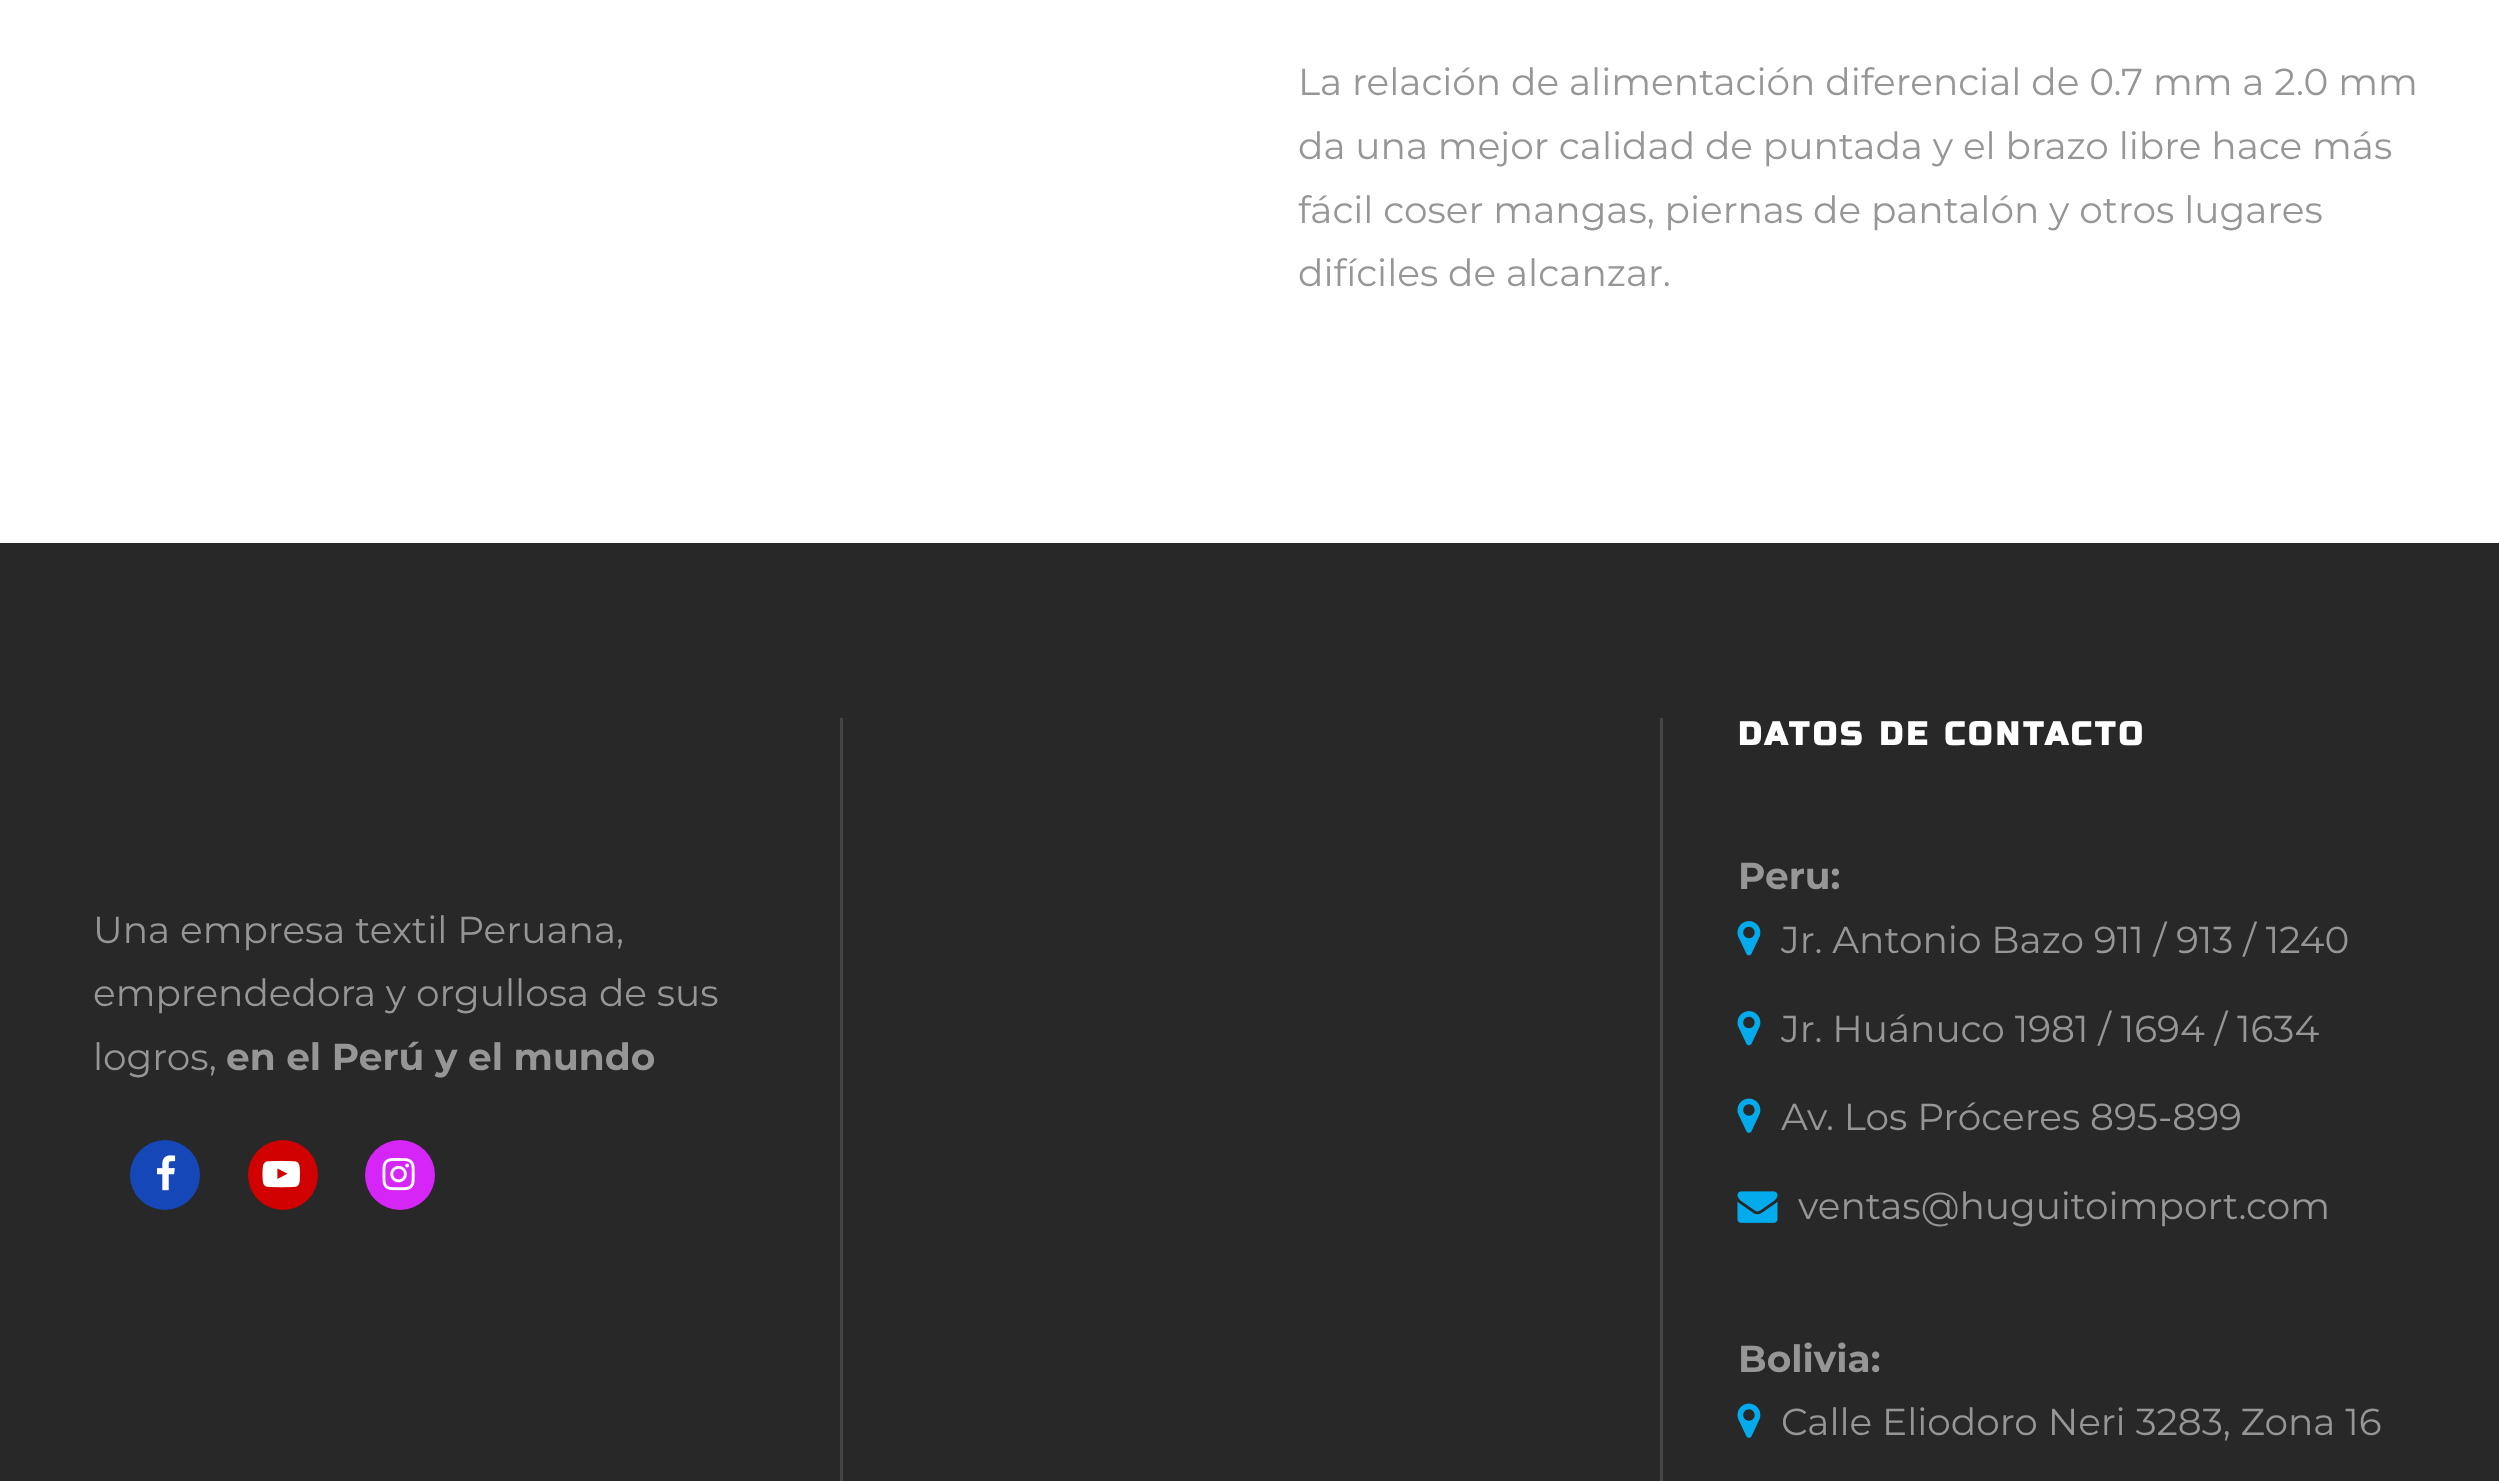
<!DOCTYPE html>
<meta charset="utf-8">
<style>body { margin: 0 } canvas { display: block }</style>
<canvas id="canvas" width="2499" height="1481"></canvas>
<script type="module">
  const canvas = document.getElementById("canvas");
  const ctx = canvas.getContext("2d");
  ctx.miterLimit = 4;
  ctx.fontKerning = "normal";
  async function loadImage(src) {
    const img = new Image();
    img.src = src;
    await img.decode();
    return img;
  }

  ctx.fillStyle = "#ffffff";
  ctx.fillRect(0, 0, 2499, 1481);
  ctx.font = "37.5px Montserrat";
  ctx.fillStyle = "#969696";
  ctx.fillText("La relación de alimentación diferencial de 0.7 mm a 2.0 mm", 1298, 95);
  ctx.fillText("da una mejor calidad de puntada y el brazo libre hace más", 1298, 159);
  ctx.fillText("fácil coser mangas, piernas de pantalón y otros lugares", 1298, 223);
  ctx.fillText("difíciles de alcanzar.", 1298, 286);
  ctx.fillStyle = "#282828";
  ctx.fillRect(0, 543, 2499, 938);
  ctx.fillStyle = "#969696";
  ctx.fillText("Una empresa textil Peruana,", 93, 943);
  ctx.fillText("emprendedora y orgullosa de sus", 93, 1006);
  ctx.fillText("logros,", 93, 1070);
  ctx.font = "bold 37.5px Montserrat";
  ctx.fillText("en el Perú y el mundo", 226, 1070);
  ctx.fillStyle = "#1547b9";
  ctx.beginPath();
  ctx.arc(165, 1175, 35, 0, Math.PI * 2);
  ctx.fill();
  ctx.drawImage(await loadImage("img1.png"), 157, 1155, 19, 36);
  ctx.fillStyle = "#d10101";
  ctx.beginPath();
  ctx.arc(283, 1175, 35, 0, Math.PI * 2);
  ctx.fill();
  ctx.drawImage(await loadImage("img2.png"), 262, 1160, 38, 28);
  ctx.fillStyle = "#d625f7";
  ctx.beginPath();
  ctx.arc(400, 1175, 35, 0, Math.PI * 2);
  ctx.fill();
  ctx.drawImage(await loadImage("img3.png"), 382, 1158, 33, 33);
  ctx.fillStyle = "#444444";
  ctx.fillRect(840, 718, 3, 763);
  ctx.fillRect(1660, 718, 3, 763);
  ctx.letterSpacing = "3.75px";
  ctx.font = "bold 32.5px Russo One";
  ctx.fillStyle = "#ffffff";
  ctx.fillText("DATOS DE CONTACTO", 1738, 745);
  ctx.letterSpacing = "0px";
  ctx.font = "bold 37.5px Montserrat";
  ctx.fillStyle = "#969696";
  ctx.fillText("Peru:", 1738, 889);
  ctx.drawImage(await loadImage("img4.png"), 1737, 921, 24, 35);
  ctx.font = "37.5px Montserrat";
  ctx.fillText("Jr. Antonio Bazo 911 / 913 / 1240", 1781, 953);
  ctx.drawImage(await loadImage("img4.png"), 1737, 1011, 24, 35);
  ctx.fillText("Jr. Huánuco 1981 / 1694 / 1634", 1781, 1042);
  ctx.drawImage(await loadImage("img5.png"), 1737, 1098, 24, 35);
  ctx.fillText("Av. Los Próceres 895-899", 1781, 1130);
  ctx.drawImage(await loadImage("img6.png"), 1737, 1191, 41, 32);
  ctx.fillText("ventas@huguitoimport.com", 1798, 1219);
  ctx.font = "bold 37.5px Montserrat";
  ctx.fillText("Bolivia:", 1738, 1372);
  ctx.drawImage(await loadImage("img5.png"), 1737, 1403, 24, 35);
  ctx.font = "37.5px Montserrat";
  ctx.fillText("Calle Eliodoro Neri 3283, Zona 16", 1781, 1435);
</script>
